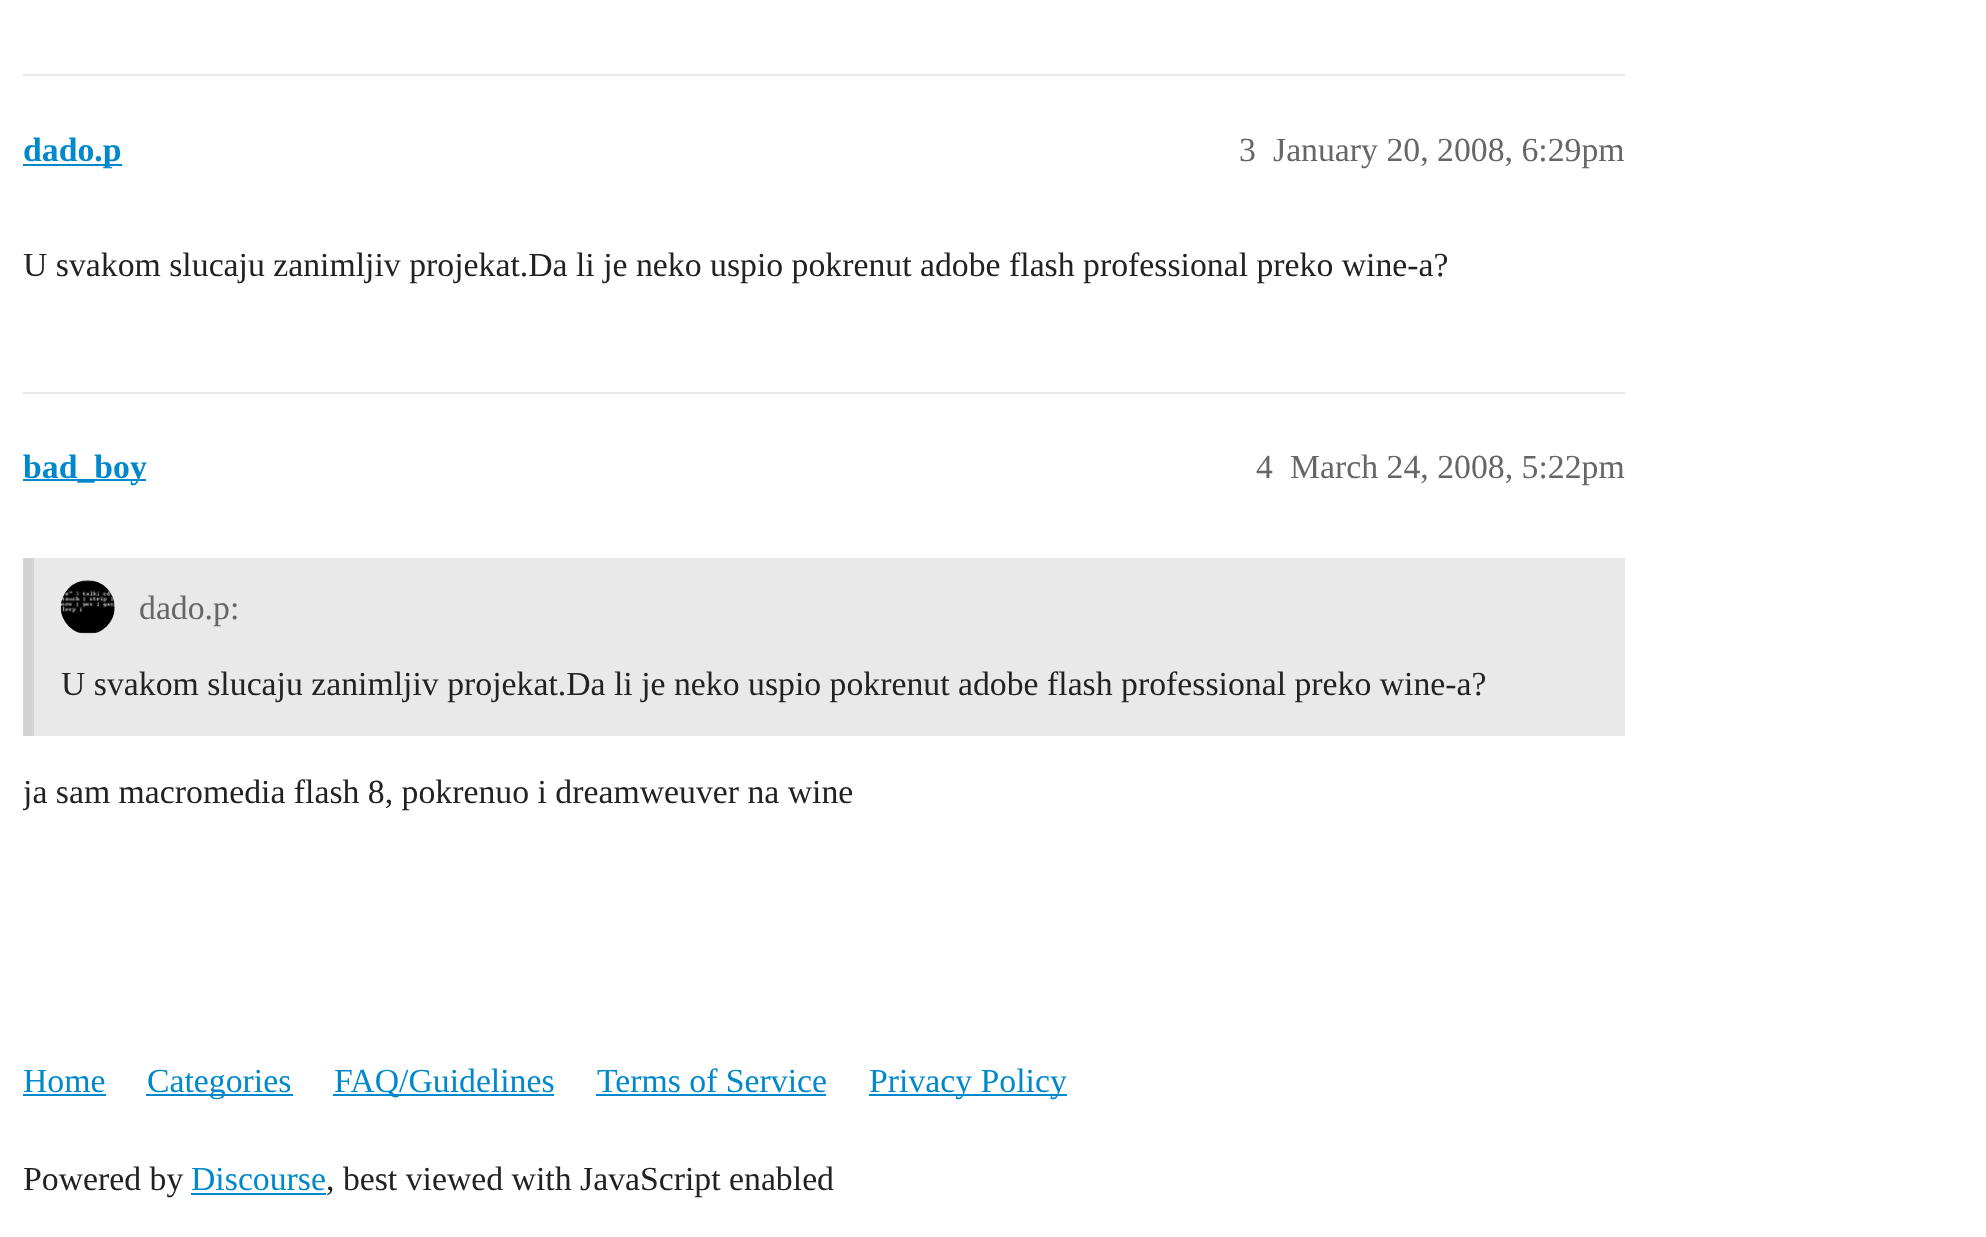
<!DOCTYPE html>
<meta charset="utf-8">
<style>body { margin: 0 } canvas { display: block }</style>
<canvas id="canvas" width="1986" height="1237"></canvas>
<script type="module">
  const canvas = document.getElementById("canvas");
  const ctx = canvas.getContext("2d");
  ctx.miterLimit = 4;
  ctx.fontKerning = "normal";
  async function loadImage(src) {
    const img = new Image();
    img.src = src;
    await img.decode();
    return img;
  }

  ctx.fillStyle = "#ffffff";
  ctx.fillRect(0, 0, 1986, 1237);
  ctx.fillStyle = "#e9e9e9";
  ctx.fillRect(23, 74, 1602, 2);
  ctx.fillStyle = "#0088cc";
  ctx.fillRect(23, 164, 99, 2);
  ctx.font = "bold 33.75px Liberation Serif";
  ctx.fillText("dado.p", 23, 161);
  ctx.font = "33.75px Liberation Serif";
  ctx.fillStyle = "#666666";
  ctx.fillText("3", 1239, 161);
  ctx.fillText("January 20, 2008, 6:29pm", 1273, 161);
  ctx.fillStyle = "#222222";
  ctx.fillText("U svakom slucaju zanimljiv projekat.Da li je neko uspio pokrenut adobe flash professional preko wine-a?", 23, 276);
  ctx.fillStyle = "#e9e9e9";
  ctx.fillRect(23, 392, 1602, 2);
  ctx.fillStyle = "#0088cc";
  ctx.fillRect(23, 479, 123, 2);
  ctx.font = "bold 33.75px Liberation Serif";
  ctx.fillText("bad_boy", 23, 478);
  ctx.font = "33.75px Liberation Serif";
  ctx.fillStyle = "#666666";
  ctx.fillText("4", 1256, 478);
  ctx.fillText("March 24, 2008, 5:22pm", 1290, 478);
  ctx.fillStyle = "#e9e9e9";
  ctx.fillRect(34, 558, 1591, 178);
  ctx.fillStyle = "#d3d3d3";
  ctx.fillRect(23, 558, 11, 178);
  ctx.drawImage(await loadImage("img1.png"), 60, 580, 55, 54);
  ctx.fillStyle = "#666666";
  ctx.fillText("dado.p:", 139, 619);
  ctx.fillStyle = "#222222";
  ctx.fillText("U svakom slucaju zanimljiv projekat.Da li je neko uspio pokrenut adobe flash professional preko wine-a?", 61, 695);
  ctx.save();
  ctx.beginPath();
  ctx.rect(23, 524, 1602, 327);
  ctx.clip();
  ctx.fillText("ja sam macromedia flash 8, pokrenuo i dreamweuver na wine", 23, 803);
  ctx.restore();
  ctx.fillStyle = "#0088cc";
  ctx.fillText("Home", 23, 1092);
  ctx.fillRect(23, 1094, 83, 2);
  ctx.fillRect(146, 1094, 147, 2);
  ctx.fillText("Categories", 147, 1092);
  ctx.fillRect(333, 1094, 221, 2);
  ctx.fillText("FAQ/Guidelines", 334, 1092);
  ctx.fillText("Terms of Service", 597, 1092);
  ctx.fillRect(596, 1094, 230, 2);
  ctx.fillRect(869, 1094, 198, 2);
  ctx.fillText("Privacy Policy", 869, 1092);
  ctx.fillStyle = "#222222";
  ctx.fillText("Powered by", 23, 1190);
  ctx.fillStyle = "#0088cc";
  ctx.fillText("Discourse", 191, 1190);
  ctx.fillRect(191, 1193, 135, 2);
  ctx.fillStyle = "#222222";
  ctx.fillText(", best viewed with JavaScript enabled", 326, 1190);
</script>
